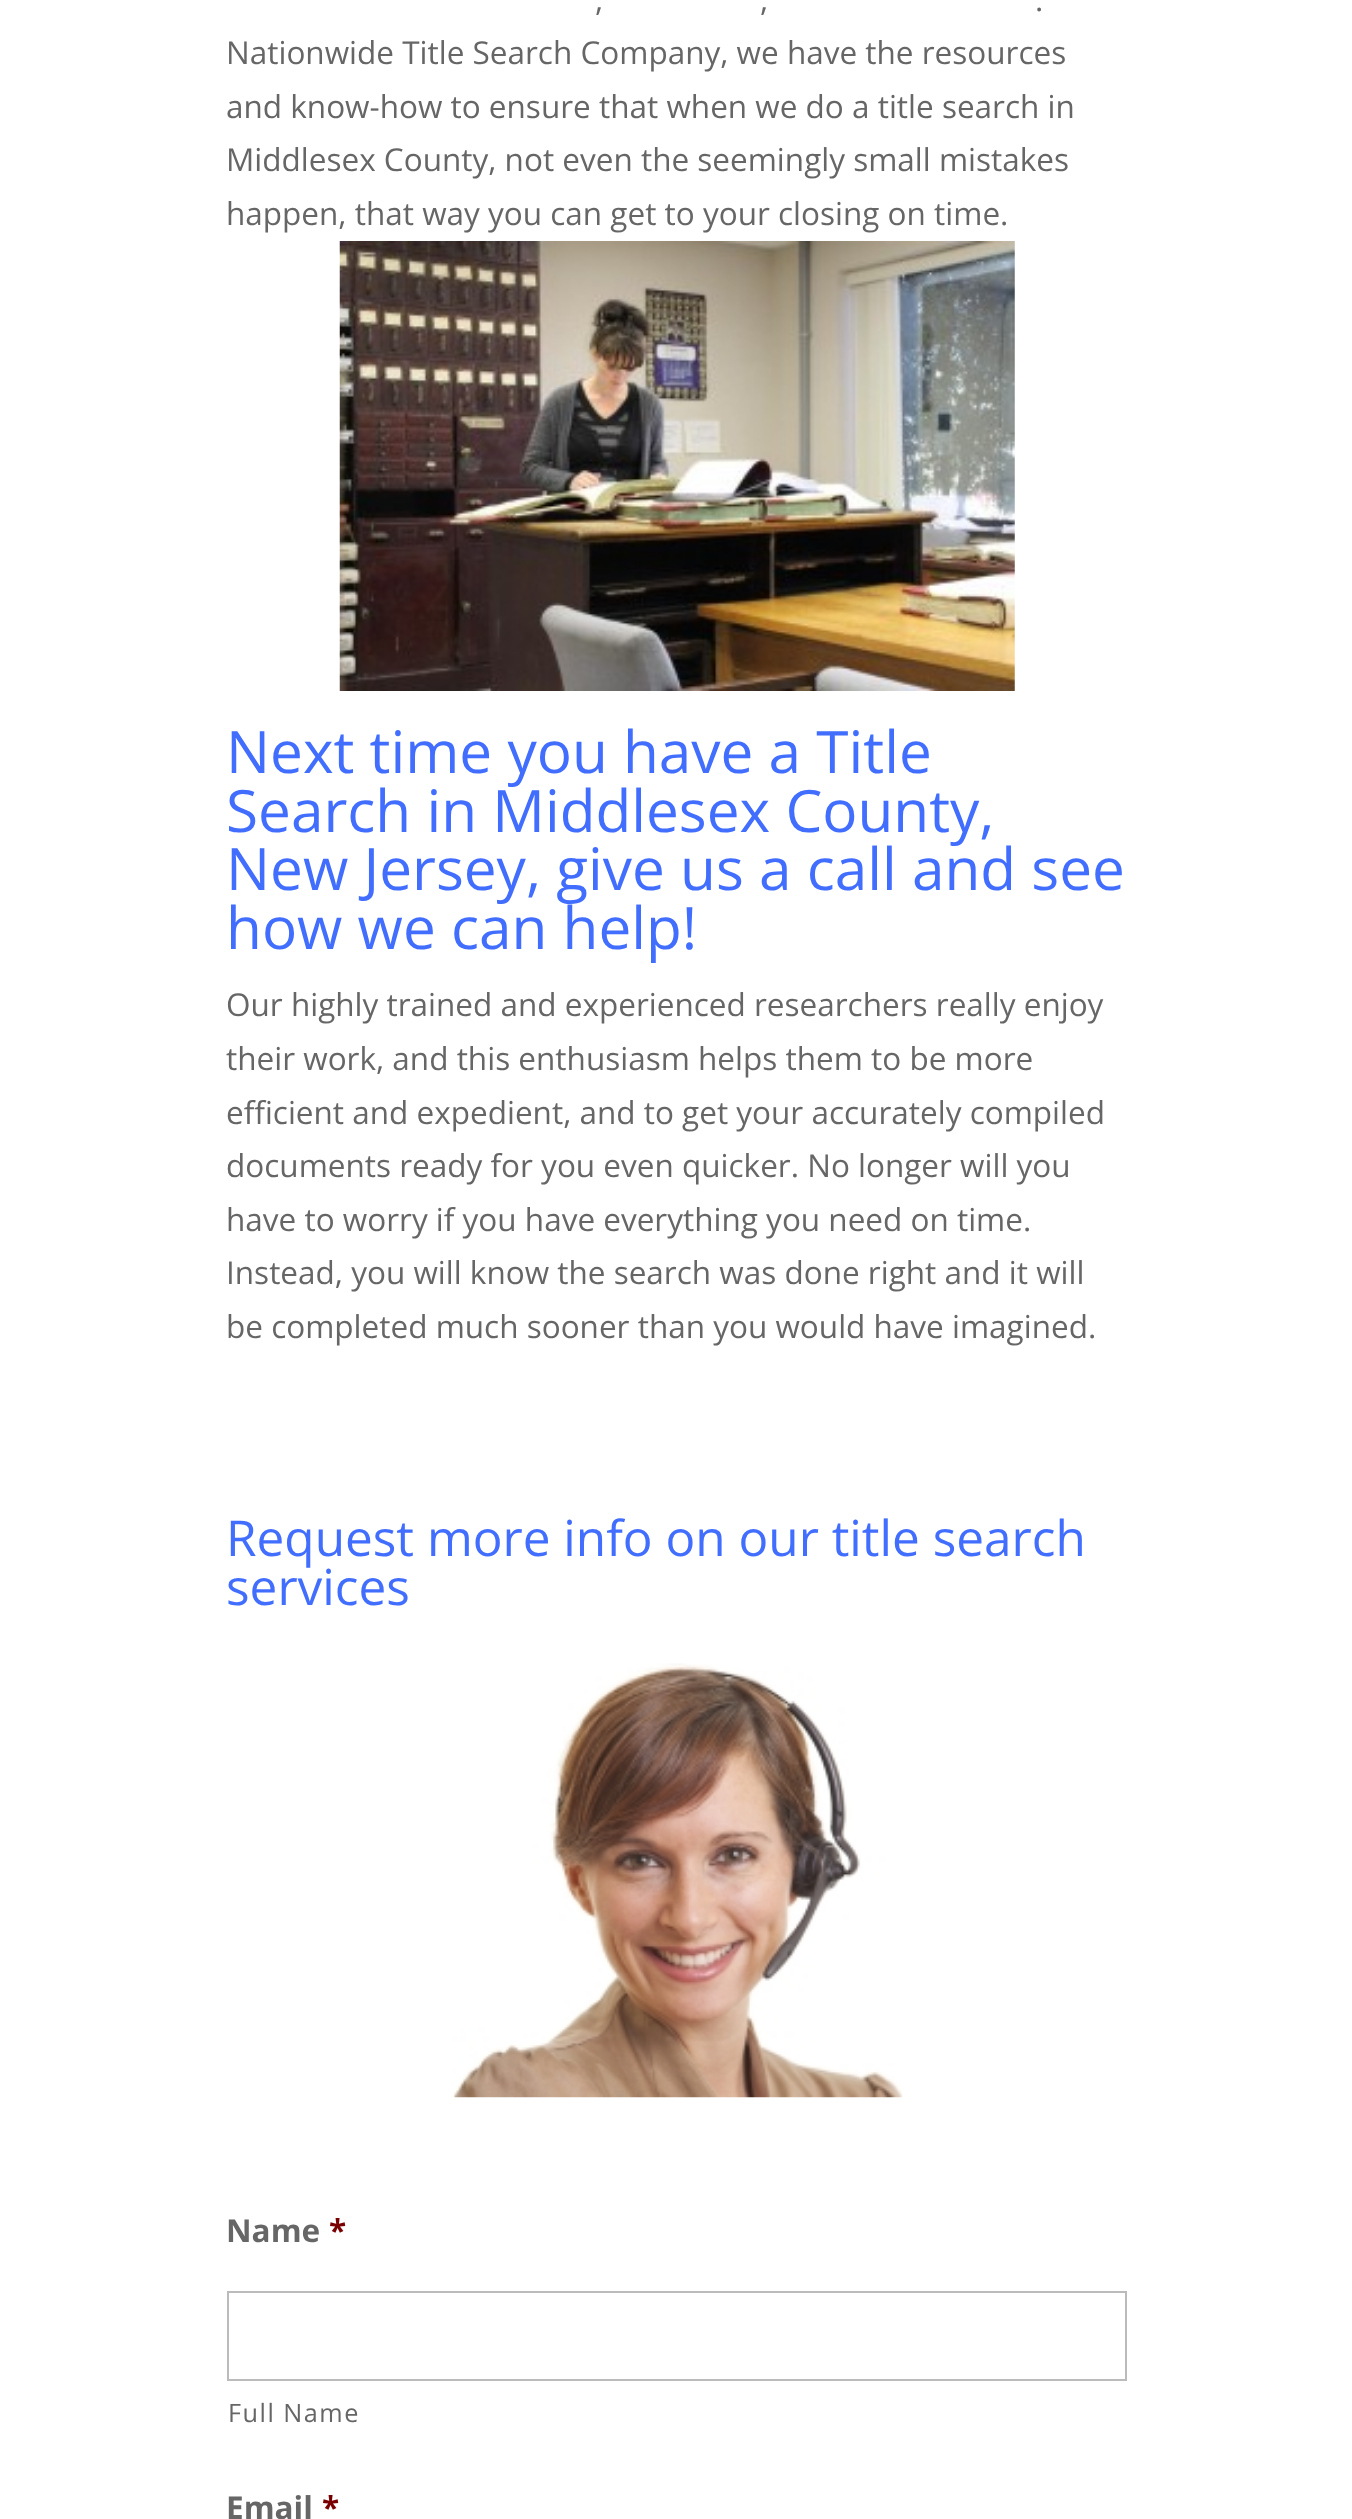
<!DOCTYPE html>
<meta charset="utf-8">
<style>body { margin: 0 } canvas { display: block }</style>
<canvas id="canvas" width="1352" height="2519"></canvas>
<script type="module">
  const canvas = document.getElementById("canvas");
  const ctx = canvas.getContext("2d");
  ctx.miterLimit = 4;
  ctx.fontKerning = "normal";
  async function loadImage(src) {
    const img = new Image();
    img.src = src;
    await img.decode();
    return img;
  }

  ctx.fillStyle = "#ffffff";
  ctx.fillRect(0, 0, 1352, 2519);
  ctx.font = "31.5px Open Sans";
  ctx.fillStyle = "#666666";
  ctx.fillText(",", 595, 11);
  ctx.fillText(",", 760, 11);
  ctx.fillText(".", 1035, 11);
  ctx.fillText("Nationwide Title Search Company, we have the resources", 226, 64);
  ctx.fillText("and know-how to ensure that when we do a title search in", 226, 118);
  ctx.fillText("Middlesex County, not even the seemingly small mistakes", 226, 171);
  ctx.fillText("happen, that way you can get to your closing on time.", 226, 225);
  ctx.drawImage(await loadImage("img1.png"), 339, 241, 676, 450);
  ctx.font = "58.5px Open Sans";
  ctx.fillStyle = "#426eff";
  ctx.fillText("Next time you have a Title", 226, 773);
  ctx.fillText("Search in Middlesex County,", 226, 832);
  ctx.fillText("New Jersey, give us a call and see", 226, 890);
  ctx.fillText("how we can help!", 226, 949);
  ctx.font = "31.5px Open Sans";
  ctx.fillStyle = "#666666";
  ctx.fillText("Our highly trained and experienced researchers really enjoy", 226, 1016);
  ctx.fillText("their work, and this enthusiasm helps them to be more", 226, 1070);
  ctx.fillText("efficient and expedient, and to get your accurately compiled", 226, 1124);
  ctx.fillText("documents ready for you even quicker. No longer will you", 226, 1177);
  ctx.fillText("have to worry if you have everything you need on time.", 226, 1231);
  ctx.fillText("Instead, you will know the search was done right and it will", 226, 1284);
  ctx.fillText("be completed much sooner than you would have imagined.", 226, 1338);
  ctx.font = "49.5px Open Sans";
  ctx.fillStyle = "#426eff";
  ctx.fillText("Request more info on our title search", 226, 1556);
  ctx.fillText("services", 226, 1605);
  ctx.drawImage(await loadImage("img2.png"), 452, 1663, 451, 435);
  ctx.font = "bold 31.5px Open Sans";
  ctx.fillStyle = "#666666";
  ctx.fillText("Name", 226, 2242);
  ctx.fillStyle = "#790000";
  ctx.fillText("*", 329, 2242);
  ctx.strokeStyle = "#bbbbbb";
  ctx.lineWidth = 2;
  ctx.strokeRect(228, 2292, 898, 88);
  ctx.letterSpacing = "1.5px";
  ctx.font = "25.25px Open Sans";
  ctx.fillStyle = "#666666";
  ctx.fillText("Full Name", 228, 2422);
  ctx.letterSpacing = "0px";
  ctx.font = "bold 31.5px Open Sans";
  ctx.fillText("Email", 226, 2519);
  ctx.fillStyle = "#790000";
  ctx.fillText("*", 322, 2519);
</script>
